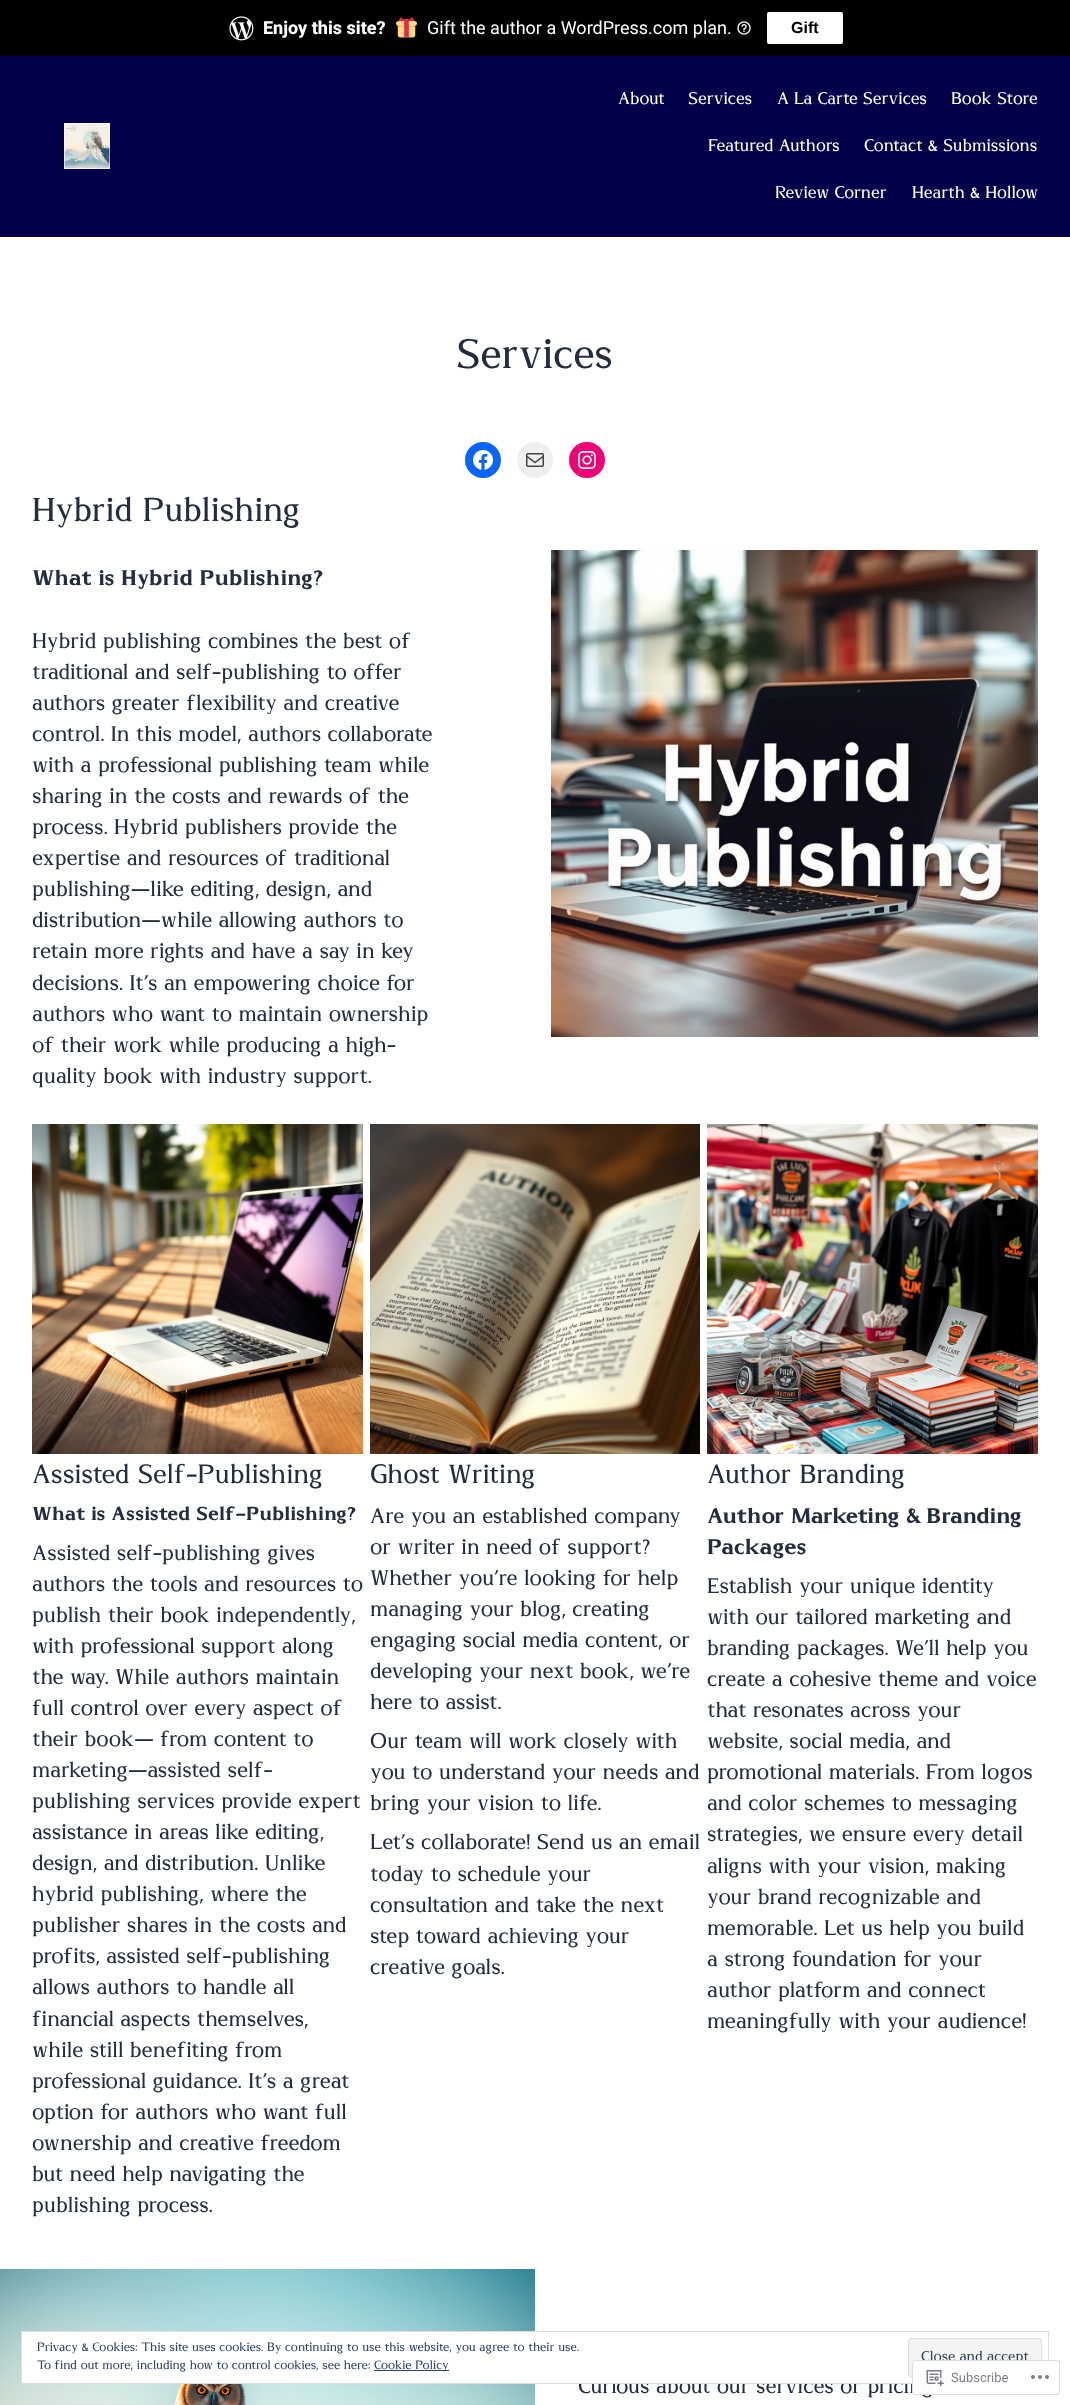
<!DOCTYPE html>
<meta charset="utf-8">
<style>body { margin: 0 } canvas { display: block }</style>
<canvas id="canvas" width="1070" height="2405"></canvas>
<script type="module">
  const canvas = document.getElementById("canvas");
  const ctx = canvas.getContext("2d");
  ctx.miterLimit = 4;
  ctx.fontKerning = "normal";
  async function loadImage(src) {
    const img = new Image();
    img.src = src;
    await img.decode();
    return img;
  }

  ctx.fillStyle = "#ffffff";
  ctx.fillRect(0, 0, 1070, 2405);
  ctx.fillStyle = "#000000";
  ctx.fillRect(0, 0, 1070, 56);
  ctx.drawImage(await loadImage("img1.png"), 229, 16, 25, 25);
  ctx.font = "800 18px Roboto";
  ctx.fillStyle = "#ffffff";
  ctx.fillText("Enjoy this site?", 263, 34);
  ctx.drawImage(await loadImage("img2.png"), 396, 17, 21, 21);
  ctx.font = "18px Roboto";
  ctx.fillText("Gift the author a WordPress.com plan.", 427, 34);
  ctx.drawImage(await loadImage("img3.png"), 737, 21, 14, 14);
  ctx.beginPath();
  ctx.roundRect(767, 12, 76, 32, 2);
  ctx.fill();
  ctx.font = "bold 16px Liberation Sans";
  ctx.fillStyle = "#000000";
  ctx.fillText("Gift", 791, 33);
  ctx.fillStyle = "#020048";
  ctx.fillRect(0, 56, 1070, 181);
  ctx.drawImage(await loadImage("img4.png"), 64, 123, 46, 46);
  ctx.font = "16.8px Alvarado";
  ctx.fillStyle = "#ffffff";
  ctx.fillText("About", 618, 104);
  ctx.fillText("Services", 688, 104);
  ctx.fillText("A La Carte Services", 777, 104);
  ctx.fillText("Book Store", 951, 104);
  ctx.fillText("Featured Authors", 708, 151);
  ctx.fillText("Contact & Submissions", 864, 151);
  ctx.fillText("Review Corner", 775, 198);
  ctx.fillText("Hearth & Hollow", 912, 198);
  ctx.font = "41px Alvarado";
  ctx.fillStyle = "#232d3f";
  ctx.fillText("Services", 456, 368);
  ctx.fillStyle = "#0866ff";
  ctx.beginPath();
  ctx.arc(483, 460, 18, 0, Math.PI * 2);
  ctx.fill();
  ctx.drawImage(await loadImage("img5.png"), 473, 450, 20, 20);
  ctx.fillStyle = "#f0f0f0";
  ctx.beginPath();
  ctx.arc(535, 460, 18, 0, Math.PI * 2);
  ctx.fill();
  ctx.drawImage(await loadImage("img6.png"), 526, 453, 18, 14);
  ctx.fillStyle = "#f00075";
  ctx.beginPath();
  ctx.arc(587, 460, 18, 0, Math.PI * 2);
  ctx.fill();
  ctx.drawImage(await loadImage("img7.png"), 578, 451, 18, 18);
  ctx.font = "33px Alvarado";
  ctx.fillStyle = "#232d3f";
  ctx.fillText("Hybrid Publishing", 32, 521);
  ctx.font = "bold 21.1px Alvarado";
  ctx.fillText("What is Hybrid Publishing?", 32, 585);
  ctx.font = "21.1px Alvarado";
  ctx.fillText("Hybrid publishing combines the best of", 32, 648);
  ctx.fillText("traditional and self-publishing to offer", 32, 679);
  ctx.fillText("authors greater flexibility and creative", 32, 710);
  ctx.fillText("control. In this model, authors collaborate", 32, 741);
  ctx.fillText("with a professional publishing team while", 32, 772);
  ctx.fillText("sharing in the costs and rewards of the", 32, 803);
  ctx.fillText("process. Hybrid publishers provide the", 32, 834);
  ctx.fillText("expertise and resources of traditional", 32, 865);
  ctx.fillText("publishing—like editing, design, and", 32, 896);
  ctx.fillText("distribution—while allowing authors to", 32, 927);
  ctx.fillText("retain more rights and have a say in key", 32, 958);
  ctx.fillText("decisions. It’s an empowering choice for", 32, 990);
  ctx.fillText("authors who want to maintain ownership", 32, 1021);
  ctx.fillText("of their work while producing a high-", 32, 1052);
  ctx.fillText("quality book with industry support.", 32, 1083);
  ctx.drawImage(await loadImage("img8.png"), 551, 550, 487, 487);
  ctx.drawImage(await loadImage("img9.png"), 32, 1124, 331, 330);
  ctx.font = "26.25px Alvarado";
  ctx.fillText("Assisted Self-Publishing", 32, 1483);
  ctx.font = "bold 18.75px Alvarado";
  ctx.fillText("What is Assisted Self-Publishing?", 32, 1520);
  ctx.font = "21.1px Alvarado";
  ctx.fillText("Assisted self-publishing gives", 32, 1560);
  ctx.fillText("authors the tools and resources to", 32, 1591);
  ctx.fillText("publish their book independently,", 32, 1622);
  ctx.fillText("with professional support along", 32, 1653);
  ctx.fillText("the way. While authors maintain", 32, 1684);
  ctx.fillText("full control over every aspect of", 32, 1715);
  ctx.fillText("their book— from content to", 32, 1746);
  ctx.fillText("marketing—assisted self-", 32, 1777);
  ctx.fillText("publishing services provide expert", 32, 1808);
  ctx.fillText("assistance in areas like editing,", 32, 1839);
  ctx.fillText("design, and distribution. Unlike", 32, 1870);
  ctx.fillText("hybrid publishing, where the", 32, 1901);
  ctx.fillText("publisher shares in the costs and", 32, 1932);
  ctx.fillText("profits, assisted self-publishing", 32, 1963);
  ctx.fillText("allows authors to handle all", 32, 1994);
  ctx.fillText("financial aspects themselves,", 32, 2026);
  ctx.fillText("while still benefiting from", 32, 2057);
  ctx.fillText("professional guidance. It’s a great", 32, 2088);
  ctx.fillText("option for authors who want full", 32, 2119);
  ctx.fillText("ownership and creative freedom", 32, 2150);
  ctx.fillText("but need help navigating the", 32, 2181);
  ctx.fillText("publishing process.", 32, 2212);
  ctx.drawImage(await loadImage("img10.png"), 370, 1124, 330, 330);
  ctx.font = "26.25px Alvarado";
  ctx.fillText("Ghost Writing", 370, 1483);
  ctx.font = "21.1px Alvarado";
  ctx.fillText("Are you an established company", 370, 1523);
  ctx.fillText("or writer in need of support?", 370, 1554);
  ctx.fillText("Whether you’re looking for help", 370, 1585);
  ctx.fillText("managing your blog, creating", 370, 1616);
  ctx.fillText("engaging social media content, or", 370, 1647);
  ctx.fillText("developing your next book, we’re", 370, 1678);
  ctx.fillText("here to assist.", 370, 1709);
  ctx.fillText("Our team will work closely with", 370, 1748);
  ctx.fillText("you to understand your needs and", 370, 1779);
  ctx.fillText("bring your vision to life.", 370, 1810);
  ctx.fillText("Let’s collaborate! Send us an email", 370, 1849);
  ctx.fillText("today to schedule your", 370, 1881);
  ctx.fillText("consultation and take the next", 370, 1912);
  ctx.fillText("step toward achieving your", 370, 1943);
  ctx.fillText("creative goals.", 370, 1974);
  ctx.drawImage(await loadImage("img11.png"), 707, 1124, 331, 330);
  ctx.font = "26.25px Alvarado";
  ctx.fillText("Author Branding", 707, 1483);
  ctx.font = "bold 21.1px Alvarado";
  ctx.fillText("Author Marketing & Branding", 707, 1523);
  ctx.fillText("Packages", 707, 1554);
  ctx.font = "21.1px Alvarado";
  ctx.fillText("Establish your unique identity", 707, 1593);
  ctx.fillText("with our tailored marketing and", 707, 1624);
  ctx.fillText("branding packages. We’ll help you", 707, 1655);
  ctx.fillText("create a cohesive theme and voice", 707, 1686);
  ctx.fillText("that resonates across your", 707, 1717);
  ctx.fillText("website, social media, and", 707, 1748);
  ctx.fillText("promotional materials. From logos", 707, 1779);
  ctx.fillText("and color schemes to messaging", 707, 1810);
  ctx.fillText("strategies, we ensure every detail", 707, 1841);
  ctx.fillText("aligns with your vision, making", 707, 1873);
  ctx.fillText("your brand recognizable and", 707, 1904);
  ctx.fillText("memorable. Let us help you build", 707, 1935);
  ctx.fillText("a strong foundation for your", 707, 1966);
  ctx.fillText("author platform and connect", 707, 1997);
  ctx.fillText("meaningfully with your audience!", 707, 2028);
  ctx.drawImage(await loadImage("img12.png"), 0, 2269, 535, 136);
  ctx.fillText("Curious about our services or pricing", 578, 2393);
  ctx.fillStyle = "#ffffff";
  ctx.fillRect(22, 2332, 910, 51);
  ctx.strokeStyle = "#dedede";
  ctx.strokeRect(21.5, 2331.5, 1027, 52);
  ctx.font = "12px Alvarado";
  ctx.fillStyle = "#2e4467";
  ctx.fillText("Privacy & Cookies: This site uses cookies. By continuing to use this website, you agree to their use.", 37, 2351);
  ctx.fillStyle = "#f3f3f3";
  ctx.beginPath();
  ctx.roundRect(908.5, 2338.5, 133, 38, 2.5);
  ctx.fill();
  ctx.stroke();
  ctx.font = "14px Alvarado";
  ctx.fillStyle = "#2e4453";
  ctx.fillText("Close and accept", 921, 2361);
  ctx.font = "12px Alvarado";
  ctx.fillStyle = "#2e4467";
  ctx.fillText("To find out more, including how to control cookies, see here:", 37, 2369);
  ctx.fillRect(374, 2370, 75, 1);
  ctx.fillText("Cookie Policy", 374, 2369);
  ctx.fillStyle = "rgba(255, 255, 255, 0.98)";
  ctx.beginPath();
  ctx.roundRect(912, 2360, 148, 35, 3);
  ctx.fill();
  ctx.beginPath();
  ctx.roundRect(912.5, 2360.5, 147, 34, 2.5);
  ctx.strokeStyle = "rgba(220, 220, 222, 0.98)";
  ctx.stroke();
  ctx.drawImage(await loadImage("img13.png"), 926, 2370, 18, 17);
  ctx.font = "13px Roboto";
  ctx.fillStyle = "#7b7f84";
  ctx.fillText("Subscribe", 951, 2382);
  ctx.drawImage(await loadImage("img14.png"), 1031, 2375, 18, 4);
</script>
